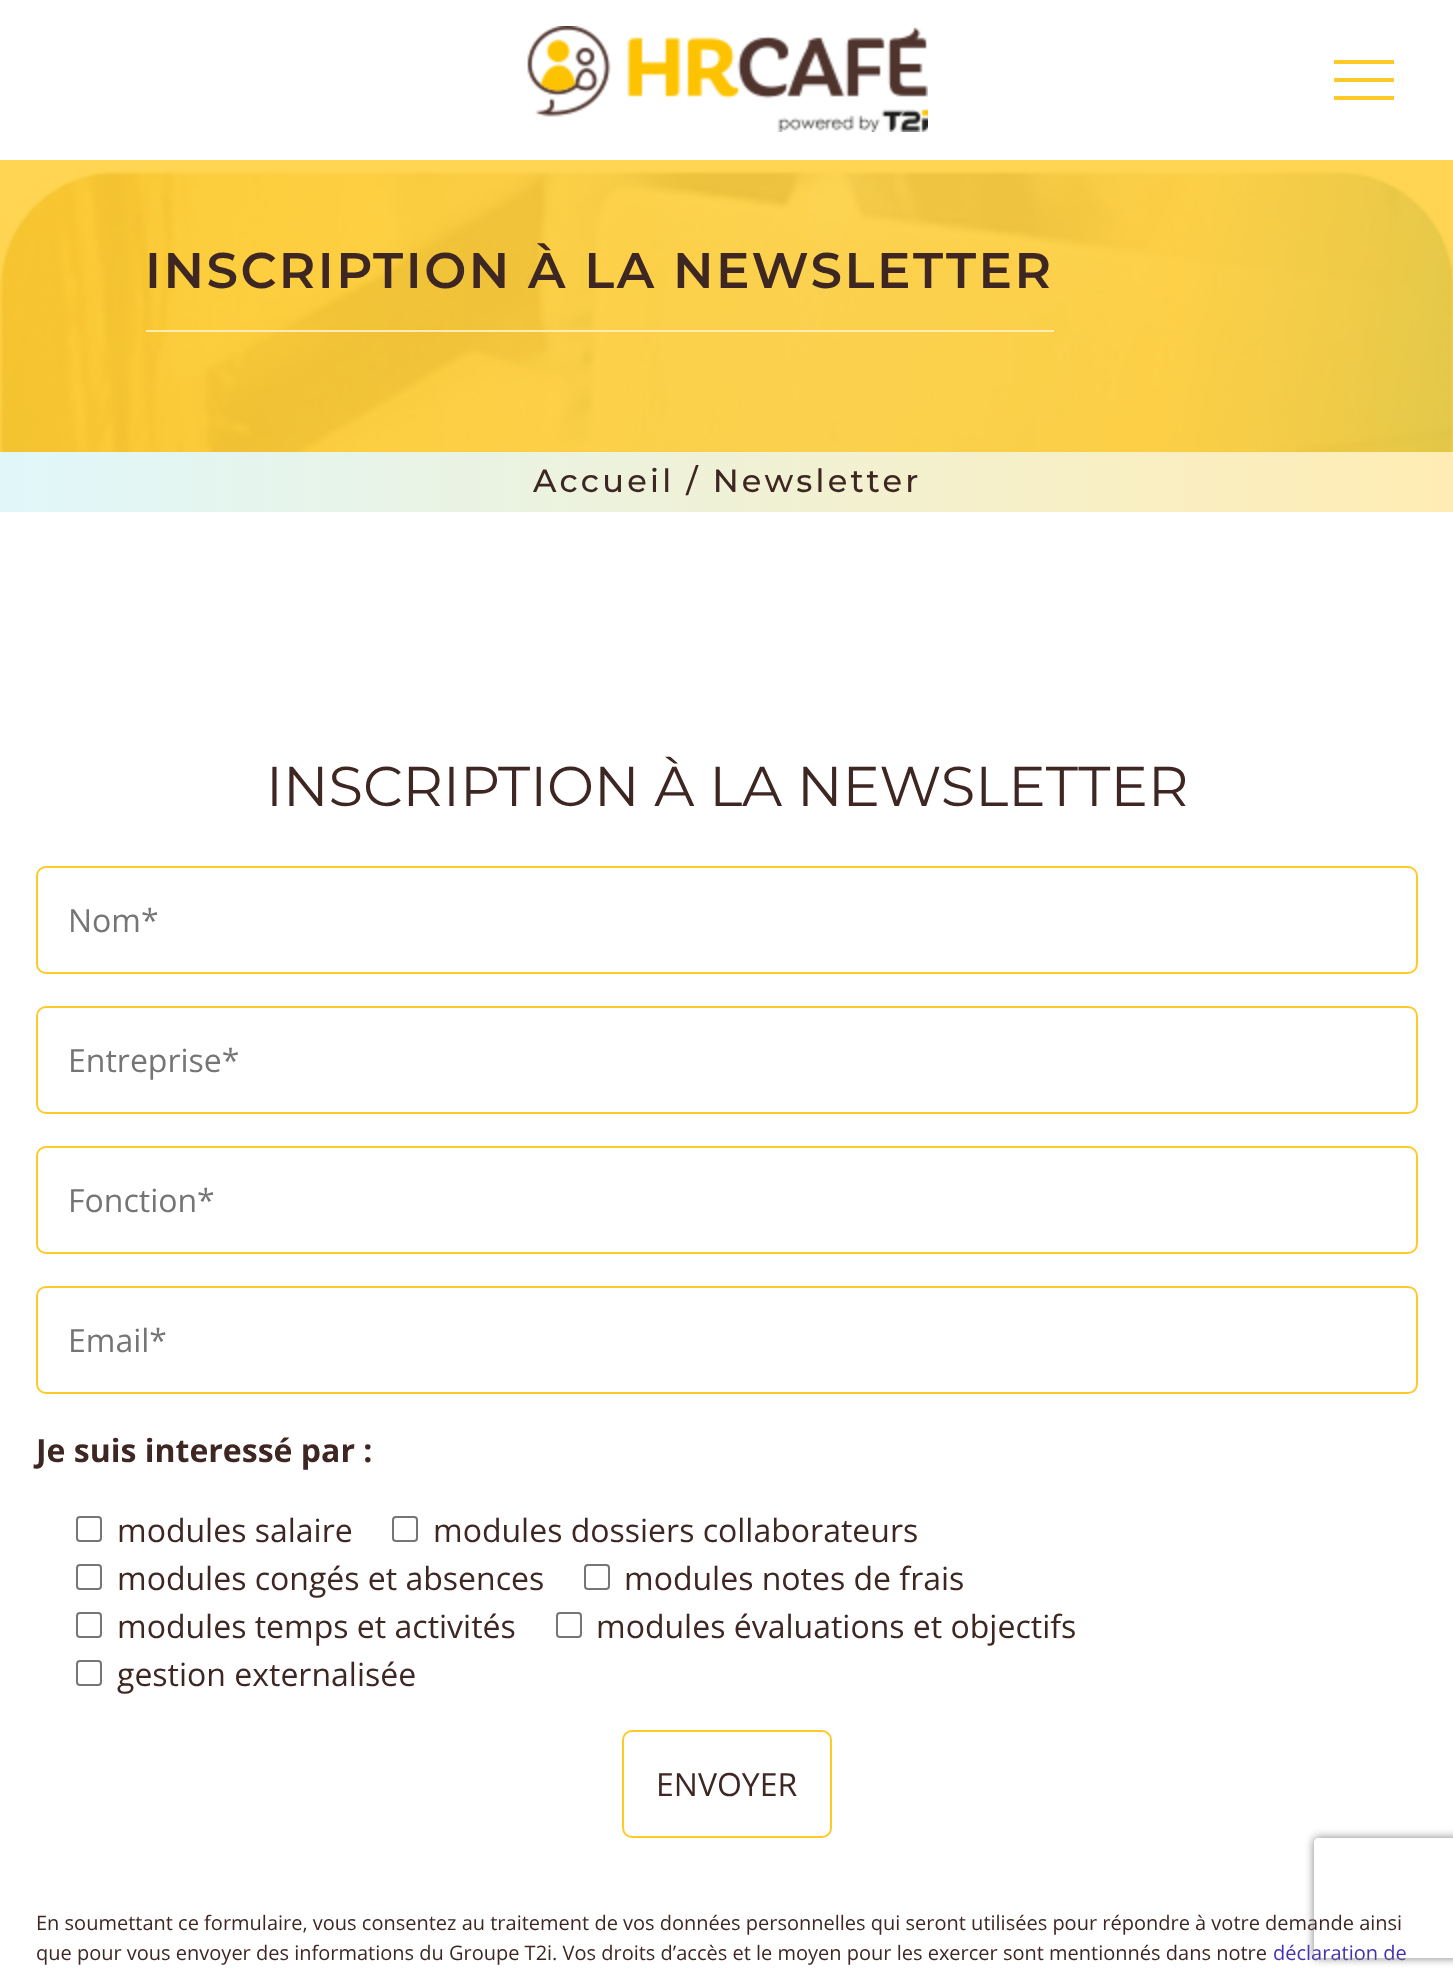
<!DOCTYPE html>
<meta charset="utf-8">
<style>body { margin: 0 } canvas { display: block }</style>
<canvas id="canvas" width="1453" height="1985"></canvas>
<script type="module">
  const canvas = document.getElementById("canvas");
  const ctx = canvas.getContext("2d");
  ctx.miterLimit = 4;
  ctx.fontKerning = "normal";
  async function loadImage(src) {
    const img = new Image();
    img.src = src;
    await img.decode();
    return img;
  }
  let gradient;

  ctx.fillStyle = "#ffffff";
  ctx.fillRect(0, 0, 1453, 1985);
  ctx.fillStyle = "#ffd553";
  ctx.fillRect(0, 160, 1453, 7);
  ctx.drawImage(await loadImage("img1.png"), 527, 26, 401, 106);
  ctx.fillStyle = "#ffca28";
  ctx.fillRect(1334, 60, 60, 4);
  ctx.fillRect(1334, 78, 60, 4);
  ctx.fillRect(1334, 96, 60, 4);
  ctx.drawImage(await loadImage("img2.png"), 0, 167, 1453, 285);
  ctx.fillStyle = "#ffecb3";
  ctx.fillRect(146, 330, 908, 2);
  ctx.letterSpacing = "2.5px";
  ctx.font = "600 50px Montserrat";
  ctx.fillStyle = "#3e2723";
  ctx.fillText("INSCRIPTION À LA NEWSLETTER", 145, 288);
  gradient = ctx.createLinearGradient(0, 482, 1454, 482);
  gradient.addColorStop(0, "#e0f7fa");
  gradient.addColorStop(1, "#ffecb3");
  ctx.fillStyle = gradient;
  ctx.fillRect(0, 452, 1453, 60);
  ctx.letterSpacing = "3.25px";
  ctx.font = "500 32px Montserrat";
  ctx.fillStyle = "#3e2723";
  ctx.fillText("Accueil / Newsletter", 533, 492);
  ctx.letterSpacing = "0px";
  ctx.font = "56px Montserrat";
  ctx.fillText("INSCRIPTION À LA NEWSLETTER", 266, 806);
  ctx.beginPath();
  ctx.roundRect(37, 867, 1380, 106, 9);
  ctx.strokeStyle = "#ffca28";
  ctx.lineWidth = 2;
  ctx.stroke();
  ctx.font = "32px Open Sans";
  ctx.fillStyle = "#757575";
  ctx.fillText("Nom*", 68, 932);
  ctx.beginPath();
  ctx.roundRect(37, 1007, 1380, 106, 9);
  ctx.stroke();
  ctx.fillText("Entreprise*", 68, 1072);
  ctx.beginPath();
  ctx.roundRect(37, 1147, 1380, 106, 9);
  ctx.stroke();
  ctx.fillText("Fonction*", 68, 1212);
  ctx.beginPath();
  ctx.roundRect(37, 1287, 1380, 106, 9);
  ctx.stroke();
  ctx.fillText("Email*", 68, 1352);
  ctx.font = "bold 32px Open Sans";
  ctx.fillStyle = "#3e2723";
  ctx.fillText("Je suis interessé par :", 36, 1462);
  ctx.beginPath();
  ctx.roundRect(77, 1517, 24, 24, 3);
  ctx.strokeStyle = "#767676";
  ctx.stroke();
  ctx.font = "32px Open Sans";
  ctx.fillText("modules salaire", 117, 1542);
  ctx.beginPath();
  ctx.roundRect(393, 1517, 24, 24, 3);
  ctx.stroke();
  ctx.fillText("modules dossiers collaborateurs", 433, 1542);
  ctx.beginPath();
  ctx.roundRect(77, 1565, 24, 24, 3);
  ctx.stroke();
  ctx.fillText("modules congés et absences", 117, 1590);
  ctx.beginPath();
  ctx.roundRect(585, 1565, 24, 24, 3);
  ctx.stroke();
  ctx.fillText("modules notes de frais", 624, 1590);
  ctx.beginPath();
  ctx.roundRect(77, 1613, 24, 24, 3);
  ctx.stroke();
  ctx.fillText("modules temps et activités", 117, 1638);
  ctx.beginPath();
  ctx.roundRect(557, 1613, 24, 24, 3);
  ctx.stroke();
  ctx.fillText("modules évaluations et objectifs", 596, 1638);
  ctx.beginPath();
  ctx.roundRect(77, 1661, 24, 24, 3);
  ctx.stroke();
  ctx.fillText("gestion externalisée", 117, 1686);
  ctx.beginPath();
  ctx.roundRect(623, 1731, 208, 106, 9);
  ctx.strokeStyle = "#ffca28";
  ctx.stroke();
  ctx.fillText("ENVOYER", 656, 1796);
  ctx.font = "20px Open Sans";
  ctx.fillText("En soumettant ce formulaire, vous consentez au traitement de vos données personnelles qui seront utilisées pour répondre à votre demande ainsi", 36, 1930);
  ctx.fillText("que pour vous envoyer des informations du Groupe T2i. Vos droits d’accès et le moyen pour les exercer sont mentionnés dans notre", 36, 1960);
  ctx.fillStyle = "#4230b2";
  ctx.fillText("déclaration de", 1273, 1960);
  ctx.save();
  ctx.beginPath();
  ctx.moveTo(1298, 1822);
  ctx.lineTo(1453, 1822);
  ctx.lineTo(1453, 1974);
  ctx.lineTo(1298, 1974);
  ctx.closePath();
  ctx.moveTo(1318, 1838);
  ctx.lineTo(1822, 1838);
  ctx.bezierCurveTo(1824, 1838, 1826, 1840, 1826, 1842);
  ctx.lineTo(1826, 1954);
  ctx.bezierCurveTo(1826, 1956, 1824, 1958, 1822, 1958);
  ctx.lineTo(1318, 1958);
  ctx.bezierCurveTo(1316, 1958, 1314, 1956, 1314, 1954);
  ctx.lineTo(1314, 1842);
  ctx.bezierCurveTo(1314, 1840, 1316, 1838, 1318, 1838);
  ctx.closePath();
  ctx.clip("evenodd");
  ctx.fillStyle = "#808080";
  ctx.filter = "blur(5px)";
  ctx.beginPath();
  ctx.roundRect(1314, 1838, 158, 120, 4);
  ctx.fill();
  ctx.filter = "none";
  ctx.restore();
</script>
